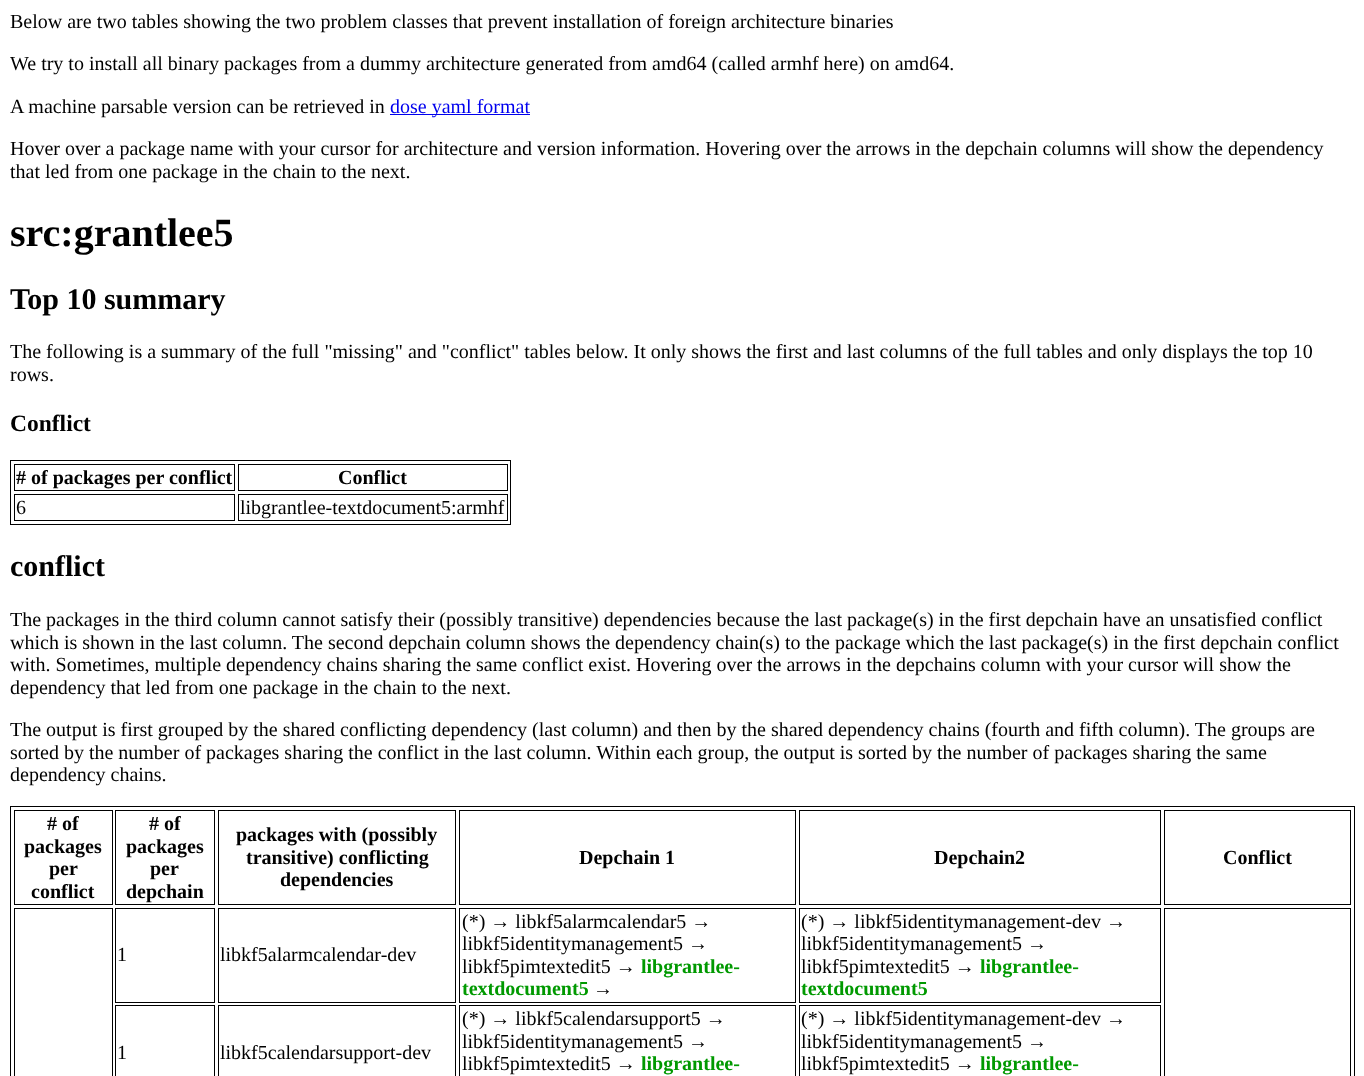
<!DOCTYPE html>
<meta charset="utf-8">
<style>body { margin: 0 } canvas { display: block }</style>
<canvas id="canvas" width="1364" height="1076"></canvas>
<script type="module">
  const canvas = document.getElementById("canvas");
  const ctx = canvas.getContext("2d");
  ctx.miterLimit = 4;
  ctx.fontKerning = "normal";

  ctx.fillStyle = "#ffffff";
  ctx.fillRect(0, 0, 1364, 1076);
  ctx.font = "20px Liberation Serif";
  ctx.fillStyle = "#000000";
  ctx.fillText("Below are two tables showing the two problem classes that prevent installation of foreign architecture binaries", 10, 28);
  ctx.fillText("We try to install all binary packages from a dummy architecture generated from amd64 (called armhf here) on amd64.", 10, 70);
  ctx.fillText("A machine parsable version can be retrieved in", 10, 113);
  ctx.fillStyle = "#0000ee";
  ctx.fillRect(390, 114, 140, 1);
  ctx.fillText("dose yaml format", 390, 113);
  ctx.fillStyle = "#000000";
  ctx.fillText("Hover over a package name with your cursor for architecture and version information. Hovering over the arrows in the depchain columns will show the dependency", 10, 155);
  ctx.fillText("that led from one package in the chain to the next.", 10, 178);
  ctx.font = "bold 40px Liberation Serif";
  ctx.fillText("src:grantlee5", 10, 246);
  ctx.font = "bold 30px Liberation Serif";
  ctx.fillText("Top 10 summary", 10, 309);
  ctx.font = "20px Liberation Serif";
  ctx.fillText("The following is a summary of the full \"missing\" and \"conflict\" tables below. It only shows the first and last columns of the full tables and only displays the top 10", 10, 358);
  ctx.fillText("rows.", 10, 381);
  ctx.font = "bold 23.5px Liberation Serif";
  ctx.fillText("Conflict", 10, 431);
  ctx.strokeStyle = "#000000";
  ctx.strokeRect(10.5, 460.5, 500, 64);
  ctx.strokeRect(14.5, 464.5, 220, 26);
  ctx.font = "bold 20px Liberation Serif";
  ctx.fillText("# of packages per conflict", 16, 484);
  ctx.strokeRect(238.5, 464.5, 269, 26);
  ctx.fillText("Conflict", 338, 484);
  ctx.strokeRect(14.5, 494.5, 220, 26);
  ctx.font = "20px Liberation Serif";
  ctx.fillText("6", 16, 514);
  ctx.strokeRect(238.5, 494.5, 269, 26);
  ctx.fillText("libgrantlee-textdocument5:armhf", 240, 514);
  ctx.font = "bold 30px Liberation Serif";
  ctx.fillText("conflict", 10, 576);
  ctx.font = "20px Liberation Serif";
  ctx.fillText("The packages in the third column cannot satisfy their (possibly transitive) dependencies because the last package(s) in the first depchain have an unsatisfied conflict", 10, 626);
  ctx.fillText("which is shown in the last column. The second depchain column shows the dependency chain(s) to the package which the last package(s) in the first depchain conflict", 10, 649);
  ctx.fillText("with. Sometimes, multiple dependency chains sharing the same conflict exist. Hovering over the arrows in the depchains column with your cursor will show the", 10, 671);
  ctx.fillText("dependency that led from one package in the chain to the next.", 10, 694);
  ctx.fillText("The output is first grouped by the shared conflicting dependency (last column) and then by the shared dependency chains (fourth and fifth column). The groups are", 10, 736);
  ctx.fillText("sorted by the number of packages sharing the conflict in the last column. Within each group, the output is sorted by the number of packages sharing the same", 10, 759);
  ctx.fillText("dependency chains.", 10, 781);
  ctx.strokeRect(10.5, 806.5, 1344, 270);
  ctx.strokeRect(14.5, 810.5, 98, 94);
  ctx.font = "bold 20px Liberation Serif";
  ctx.fillText("# of", 47, 830);
  ctx.fillText("packages", 24, 853);
  ctx.fillText("per", 49, 875);
  ctx.fillText("conflict", 31, 898);
  ctx.strokeRect(115.5, 810.5, 99, 94);
  ctx.fillText("# of", 149, 830);
  ctx.fillText("packages", 126, 853);
  ctx.fillText("per", 150, 875);
  ctx.fillText("depchain", 126, 898);
  ctx.strokeRect(218.5, 810.5, 237, 94);
  ctx.fillText("packages with (possibly", 236, 841);
  ctx.fillText("transitive) conflicting", 246, 864);
  ctx.fillText("dependencies", 280, 886);
  ctx.strokeRect(459.5, 810.5, 336, 94);
  ctx.fillText("Depchain 1", 579, 864);
  ctx.strokeRect(799.5, 810.5, 361, 94);
  ctx.fillText("Depchain2", 934, 864);
  ctx.strokeRect(1164.5, 810.5, 186, 94);
  ctx.fillText("Conflict", 1223, 864);
  ctx.strokeRect(14.5, 908.5, 98, 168);
  ctx.strokeRect(115.5, 908.5, 99, 94);
  ctx.font = "20px Liberation Serif";
  ctx.fillText("1", 117, 961);
  ctx.strokeRect(218.5, 908.5, 237, 94);
  ctx.fillText("libkf5alarmcalendar-dev", 220, 961);
  ctx.strokeRect(459.5, 908.5, 336, 94);
  ctx.fillText("(*) → libkf5alarmcalendar5 →", 462, 928);
  ctx.fillText("libkf5identitymanagement5 →", 462, 950);
  ctx.fillText("libkf5pimtextedit5 →", 462, 973);
  ctx.font = "bold 20px Liberation Serif";
  ctx.fillStyle = "#009900";
  ctx.fillText("libgrantlee-", 641, 973);
  ctx.fillText("textdocument5", 462, 995);
  ctx.font = "20px Liberation Serif";
  ctx.fillStyle = "#000000";
  ctx.fillText("→", 593, 995);
  ctx.strokeRect(799.5, 908.5, 361, 94);
  ctx.fillText("(*) → libkf5identitymanagement-dev →", 801, 928);
  ctx.fillText("libkf5identitymanagement5 →", 801, 950);
  ctx.fillText("libkf5pimtextedit5 →", 801, 973);
  ctx.font = "bold 20px Liberation Serif";
  ctx.fillStyle = "#009900";
  ctx.fillText("libgrantlee-", 980, 973);
  ctx.fillText("textdocument5", 801, 995);
  ctx.strokeRect(1164.5, 908.5, 186, 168);
  ctx.strokeRect(115.5, 1005.5, 99, 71);
  ctx.font = "20px Liberation Serif";
  ctx.fillStyle = "#000000";
  ctx.fillText("1", 117, 1059);
  ctx.strokeRect(218.5, 1005.5, 237, 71);
  ctx.fillText("libkf5calendarsupport-dev", 220, 1059);
  ctx.strokeRect(459.5, 1005.5, 336, 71);
  ctx.fillText("(*) → libkf5calendarsupport5 →", 462, 1025);
  ctx.fillText("libkf5identitymanagement5 →", 462, 1048);
  ctx.fillText("libkf5pimtextedit5 →", 462, 1070);
  ctx.font = "bold 20px Liberation Serif";
  ctx.fillStyle = "#009900";
  ctx.fillText("libgrantlee-", 641, 1070);
  ctx.strokeRect(799.5, 1005.5, 361, 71);
  ctx.font = "20px Liberation Serif";
  ctx.fillStyle = "#000000";
  ctx.fillText("(*) → libkf5identitymanagement-dev →", 801, 1025);
  ctx.fillText("libkf5identitymanagement5 →", 801, 1048);
  ctx.fillText("libkf5pimtextedit5 →", 801, 1070);
  ctx.font = "bold 20px Liberation Serif";
  ctx.fillStyle = "#009900";
  ctx.fillText("libgrantlee-", 980, 1070);
</script>
